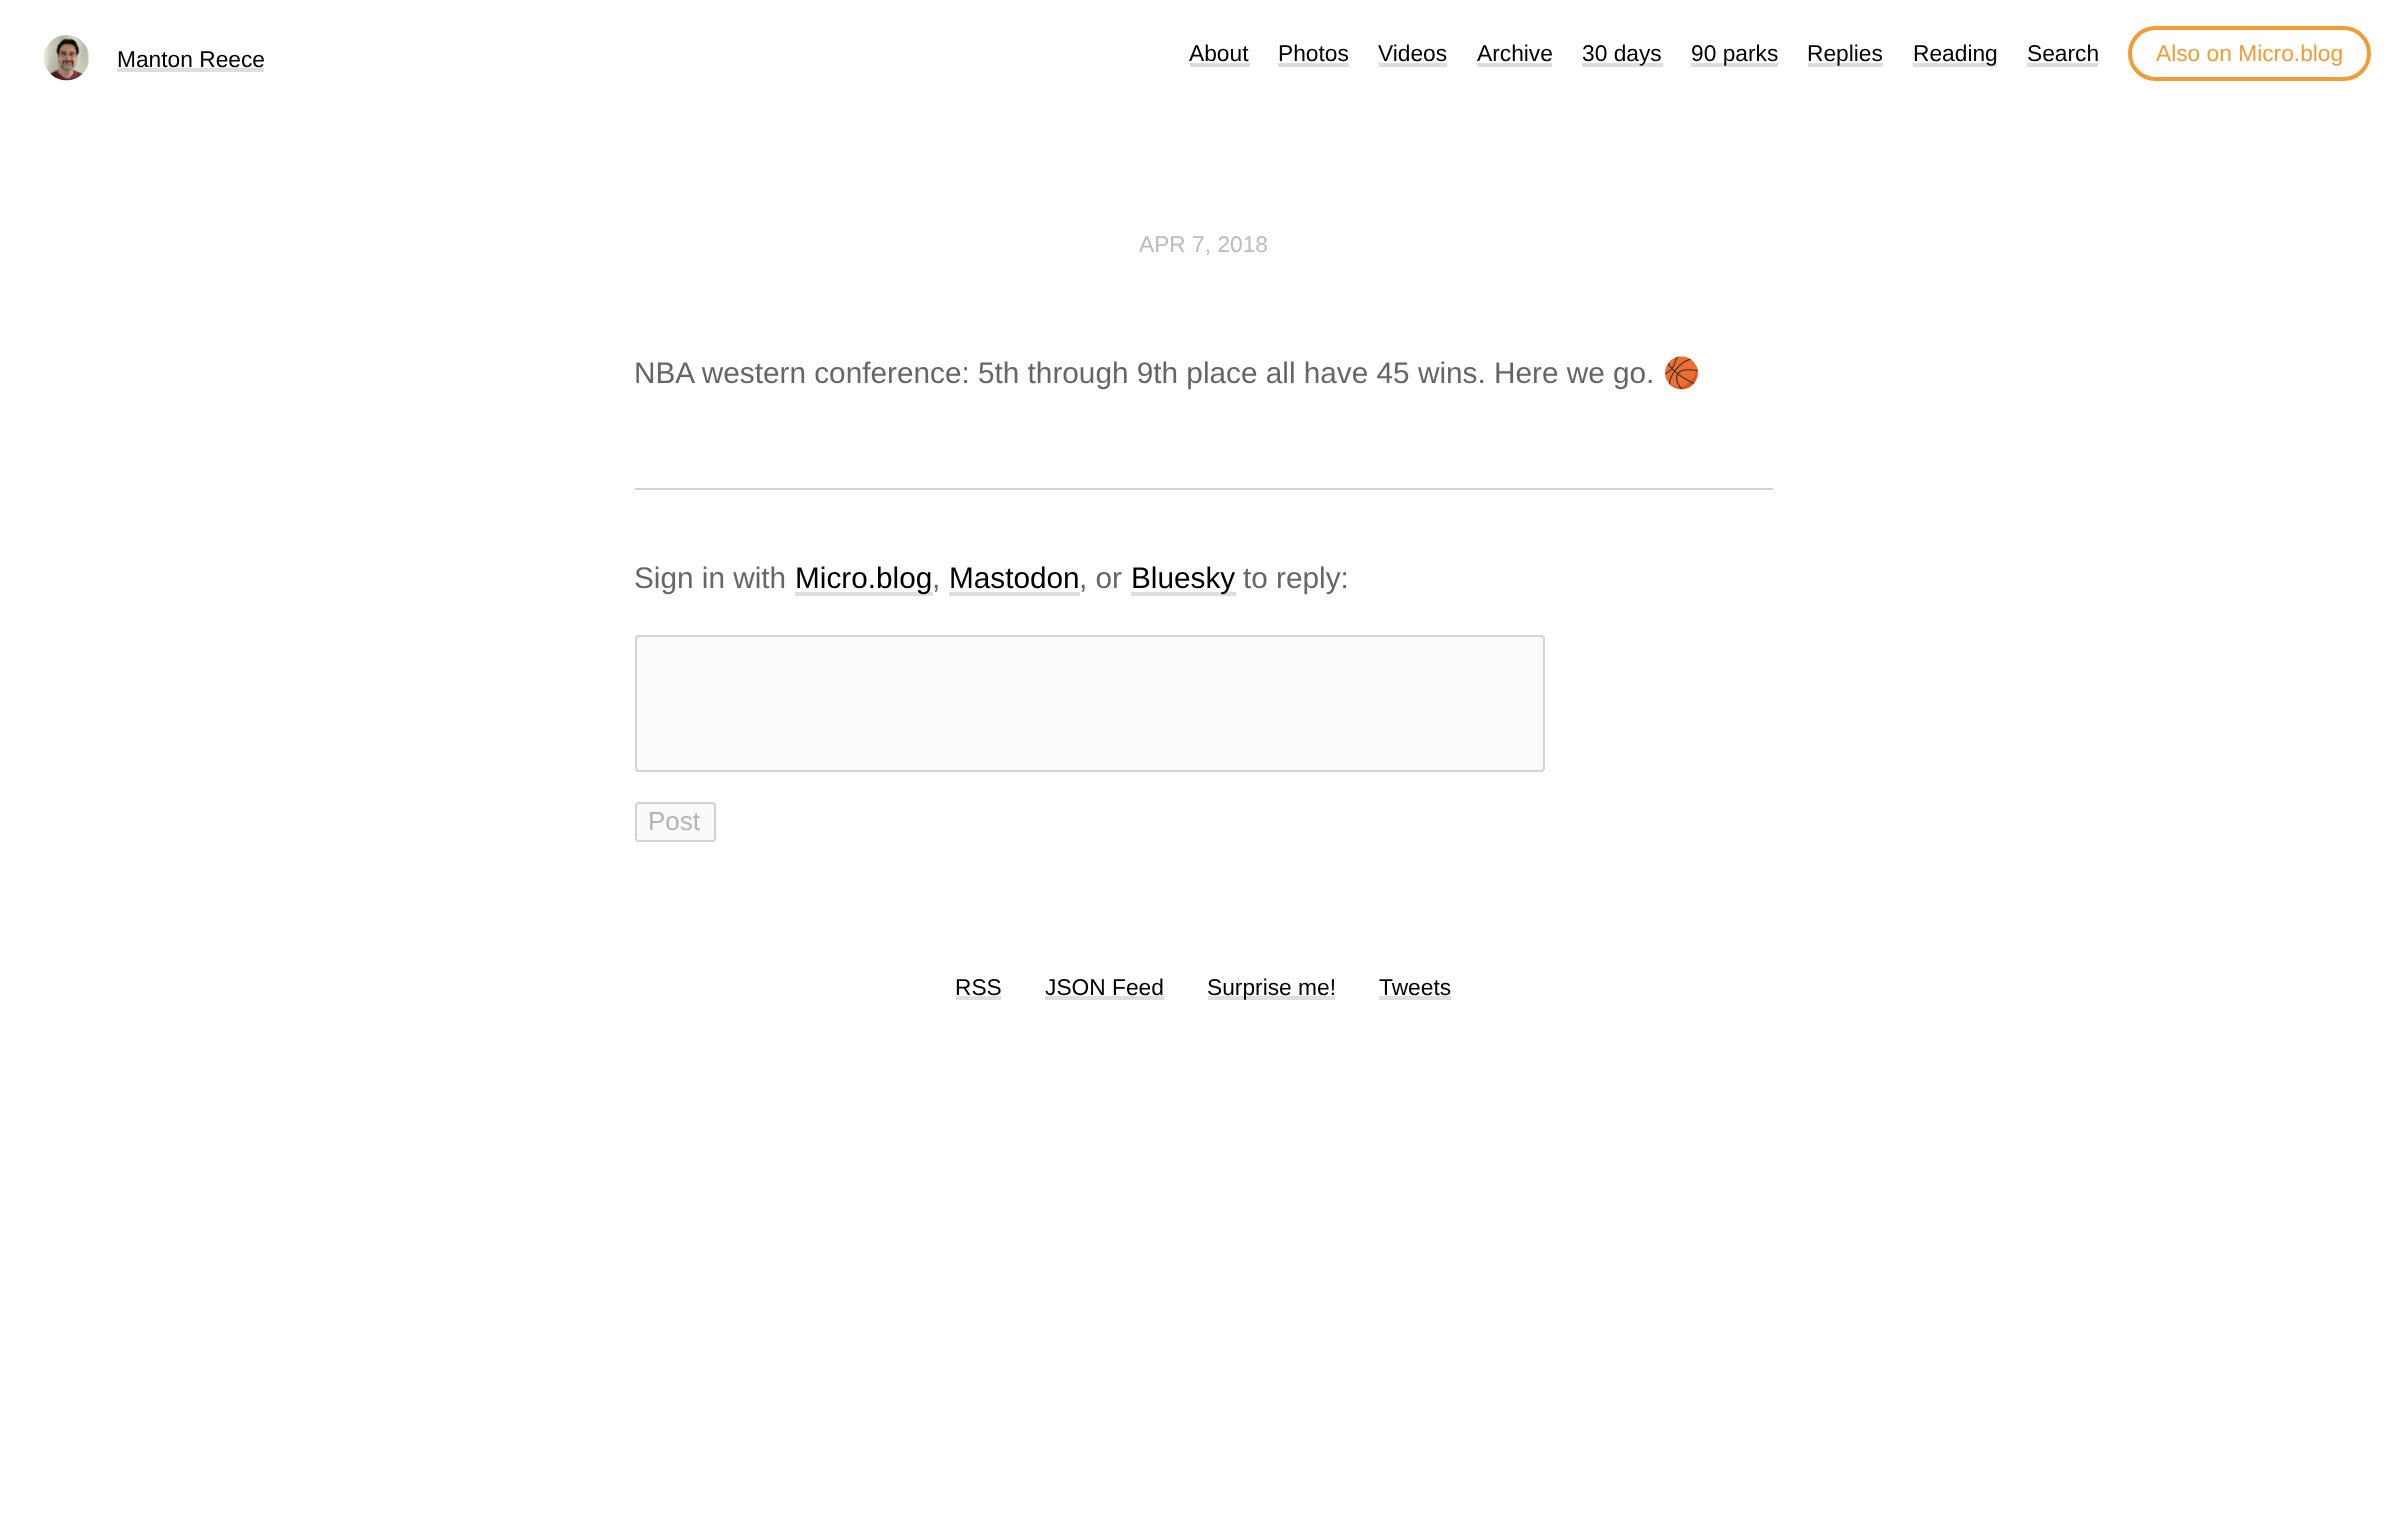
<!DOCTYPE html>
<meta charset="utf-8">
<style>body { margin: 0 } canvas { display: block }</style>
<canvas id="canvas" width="2405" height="1534"></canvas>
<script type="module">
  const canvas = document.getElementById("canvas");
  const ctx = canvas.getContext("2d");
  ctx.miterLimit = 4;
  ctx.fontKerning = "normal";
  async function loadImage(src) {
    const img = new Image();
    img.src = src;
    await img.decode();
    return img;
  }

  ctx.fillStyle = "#ffffff";
  ctx.fillRect(0, 0, 2405, 1534);
  ctx.drawImage(await loadImage("img1.png"), 44, 35, 45, 46);
  ctx.font = "22.75px Liberation Sans";
  ctx.fillStyle = "#000000";
  ctx.fillText("Manton Reece", 117, 67);
  ctx.fillStyle = "#dedede";
  ctx.fillRect(117, 68, 147, 4);
  ctx.fillStyle = "#000000";
  ctx.fillText("About", 1189, 61);
  ctx.fillStyle = "#dedede";
  ctx.fillRect(1190, 63, 60, 4);
  ctx.fillStyle = "#000000";
  ctx.fillText("Photos", 1278, 61);
  ctx.fillStyle = "#dedede";
  ctx.fillRect(1278, 63, 71, 4);
  ctx.fillStyle = "#000000";
  ctx.fillText("Videos", 1378, 61);
  ctx.fillStyle = "#dedede";
  ctx.fillRect(1379, 63, 68, 4);
  ctx.fillStyle = "#000000";
  ctx.fillText("Archive", 1477, 61);
  ctx.fillStyle = "#dedede";
  ctx.fillRect(1477, 63, 75, 4);
  ctx.fillRect(1582, 63, 81, 4);
  ctx.fillStyle = "#000000";
  ctx.fillText("30 days", 1582, 61);
  ctx.fillStyle = "#dedede";
  ctx.fillRect(1691, 63, 87, 4);
  ctx.fillStyle = "#000000";
  ctx.fillText("90 parks", 1691, 61);
  ctx.fillStyle = "#dedede";
  ctx.fillRect(1808, 63, 75, 4);
  ctx.fillStyle = "#000000";
  ctx.fillText("Replies", 1807, 61);
  ctx.fillStyle = "#dedede";
  ctx.fillRect(1913, 63, 84, 4);
  ctx.fillStyle = "#000000";
  ctx.fillText("Reading", 1913, 61);
  ctx.fillText("Search", 2027, 61);
  ctx.fillStyle = "#dedede";
  ctx.fillRect(2027, 63, 71, 4);
  ctx.beginPath();
  ctx.roundRect(2130, 28, 239, 51, 25.5);
  ctx.strokeStyle = "#f29c38";
  ctx.lineWidth = 4;
  ctx.stroke();
  ctx.fillStyle = "#f29c38";
  ctx.fillText("Also on Micro.blog", 2156, 61);
  ctx.fillStyle = "#bbbbbb";
  ctx.fillText("APR 7, 2018", 1139, 252);
  ctx.font = "29.75px Liberation Sans";
  ctx.fillStyle = "#666666";
  ctx.fillText("NBA western conference: 5th through 9th place all have 45 wins. Here we go.", 634, 383);
  ctx.font = "29.75px Noto Color Emoji";
  ctx.fillText("🏀", 1663, 383);
  ctx.fillStyle = "#d3d3d3";
  ctx.fillRect(635, 488, 1138, 2);
  ctx.font = "29.75px Liberation Sans";
  ctx.fillStyle = "#666666";
  ctx.fillText("Sign in with", 634, 588);
  ctx.fillStyle = "#dedede";
  ctx.fillRect(795, 592, 138, 4);
  ctx.fillStyle = "#000000";
  ctx.fillText("Micro.blog", 795, 588);
  ctx.fillStyle = "#666666";
  ctx.fillText(",", 932, 588);
  ctx.fillStyle = "#000000";
  ctx.fillText("Mastodon", 949, 588);
  ctx.fillStyle = "#dedede";
  ctx.fillRect(949, 592, 131, 4);
  ctx.fillStyle = "#666666";
  ctx.fillText(", or", 1079, 588);
  ctx.fillStyle = "#dedede";
  ctx.fillRect(1131, 592, 105, 4);
  ctx.fillStyle = "#000000";
  ctx.fillText("Bluesky", 1131, 588);
  ctx.fillStyle = "#666666";
  ctx.fillText("to reply:", 1243, 588);
  ctx.fillStyle = "#fbfbfb";
  ctx.beginPath();
  ctx.roundRect(636, 636, 908, 135, 3);
  ctx.fill();
  ctx.strokeStyle = "#d3d3d3";
  ctx.lineWidth = 2;
  ctx.stroke();
  ctx.fillStyle = "#fafafa";
  ctx.beginPath();
  ctx.roundRect(636, 803, 79, 38, 3);
  ctx.fill();
  ctx.strokeStyle = "#d2d2d2";
  ctx.stroke();
  ctx.font = "26px Liberation Sans";
  ctx.fillStyle = "#b4b4b4";
  ctx.fillText("Post", 648, 830);
  ctx.font = "22.75px Liberation Sans";
  ctx.fillStyle = "#000000";
  ctx.fillText("RSS", 955, 995);
  ctx.fillStyle = "#dedede";
  ctx.fillRect(956, 996, 45, 4);
  ctx.fillStyle = "#000000";
  ctx.fillText("JSON Feed", 1045, 995);
  ctx.fillStyle = "#dedede";
  ctx.fillRect(1045, 996, 119, 4);
  ctx.fillRect(1208, 996, 127, 4);
  ctx.fillStyle = "#000000";
  ctx.fillText("Surprise me!", 1207, 995);
  ctx.fillText("Tweets", 1379, 995);
  ctx.fillStyle = "#dedede";
  ctx.fillRect(1379, 996, 72, 4);
</script>
